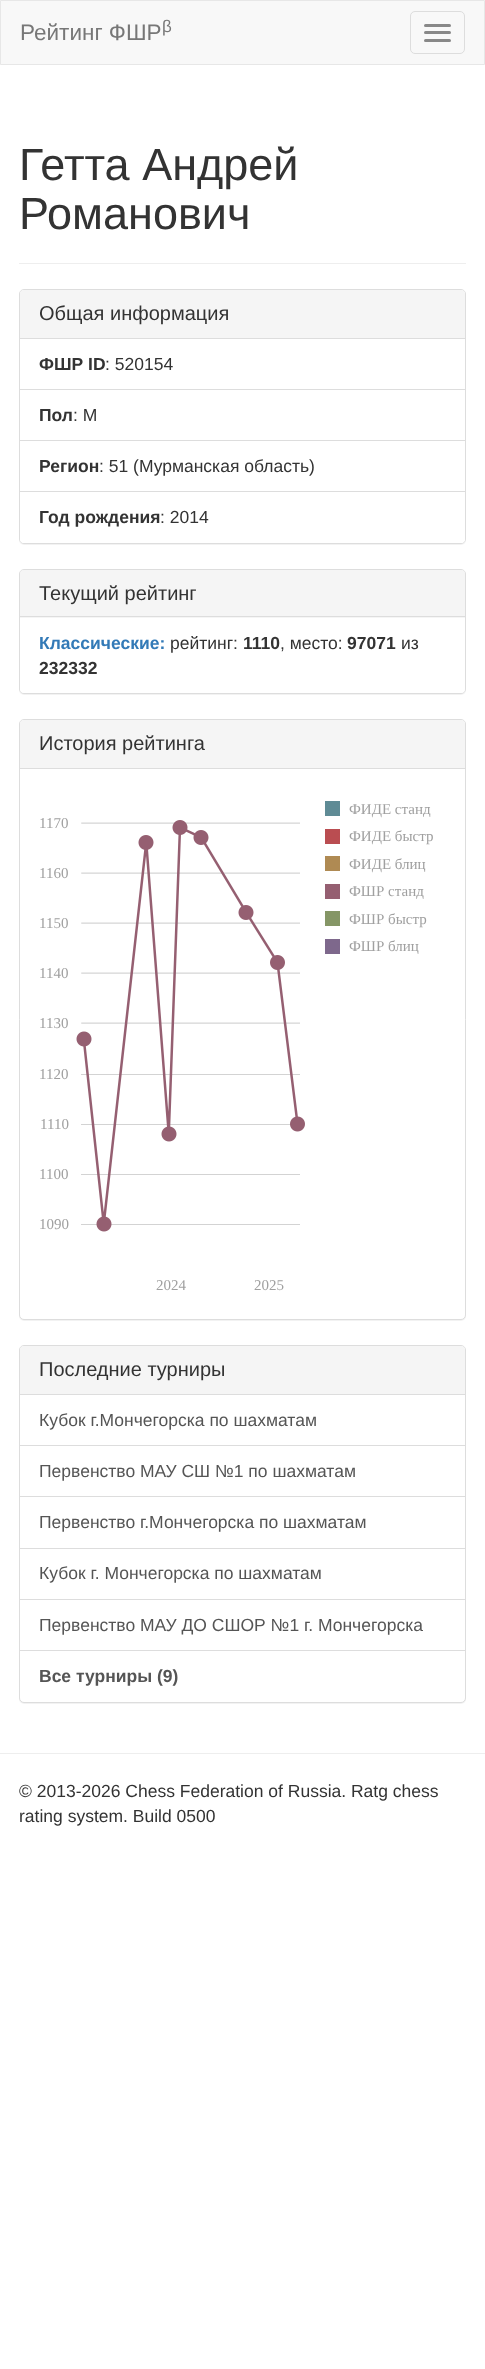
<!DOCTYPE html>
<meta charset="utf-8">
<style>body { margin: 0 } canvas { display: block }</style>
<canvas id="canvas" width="485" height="2369"></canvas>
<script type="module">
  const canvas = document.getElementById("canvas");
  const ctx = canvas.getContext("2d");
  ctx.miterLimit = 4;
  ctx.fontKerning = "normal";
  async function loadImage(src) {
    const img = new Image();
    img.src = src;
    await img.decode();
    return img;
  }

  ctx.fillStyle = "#ffffff";
  ctx.fillRect(0, 0, 485, 2369);
  ctx.fillStyle = "#f8f8f8";
  ctx.beginPath();
  ctx.rect(0.5, 0.5, 484, 64);
  ctx.fill();
  ctx.strokeStyle = "#e7e7e7";
  ctx.stroke();
  ctx.font = "22.5px Liberation Sans";
  ctx.fillStyle = "#777777";
  ctx.fillText("Рейтинг ФШР", 20, 40);
  ctx.font = "17px Liberation Sans";
  ctx.fillText("β", 162, 32);
  ctx.beginPath();
  ctx.roundRect(410.5, 11.5, 54, 42, 4.5);
  ctx.strokeStyle = "#dddddd";
  ctx.stroke();
  ctx.fillStyle = "#888888";
  ctx.beginPath();
  ctx.roundRect(424, 24, 27, 3, 1.5);
  ctx.fill();
  ctx.beginPath();
  ctx.roundRect(424, 31, 27, 3, 1.5);
  ctx.fill();
  ctx.beginPath();
  ctx.roundRect(424, 39, 27, 3, 1.5);
  ctx.fill();
  ctx.fillStyle = "#eeeeee";
  ctx.fillRect(19, 263, 447, 1);
  ctx.font = "45px Liberation Sans";
  ctx.fillStyle = "#333333";
  ctx.fillText("Гетта Андрей", 19, 180);
  ctx.fillText("Романович", 19, 229);
  ctx.fillStyle = "rgba(0, 0, 0, 0.05)";
  ctx.filter = "blur(0.5px)";
  ctx.beginPath();
  ctx.roundRect(19, 290, 447, 255, 5);
  ctx.fill();
  ctx.filter = "none";
  ctx.fillStyle = "#ffffff";
  ctx.beginPath();
  ctx.roundRect(19.5, 289.5, 446, 254, 4.5);
  ctx.fill();
  ctx.stroke();
  ctx.fillStyle = "#f5f5f5";
  ctx.beginPath();
  ctx.roundRect(20, 290, 445, 49, [4, 4, 0, 0]);
  ctx.fill();
  ctx.fillStyle = "#dddddd";
  ctx.fillRect(20, 338, 445, 1);
  ctx.font = "20px Liberation Sans";
  ctx.fillStyle = "#333333";
  ctx.fillText("Общая информация", 39, 320);
  ctx.fillStyle = "#dddddd";
  ctx.fillRect(20, 389, 445, 1);
  ctx.font = "bold 17.5px Liberation Sans";
  ctx.fillStyle = "#333333";
  ctx.fillText("ФШР ID", 39, 370);
  ctx.font = "17.5px Liberation Sans";
  ctx.fillText(": 520154", 105, 370);
  ctx.fillStyle = "#dddddd";
  ctx.fillRect(20, 440, 445, 1);
  ctx.font = "bold 17.5px Liberation Sans";
  ctx.fillStyle = "#333333";
  ctx.fillText("Пол", 39, 421);
  ctx.font = "17.5px Liberation Sans";
  ctx.fillText(": М", 73, 421);
  ctx.font = "bold 17.5px Liberation Sans";
  ctx.fillText("Регион", 39, 472);
  ctx.font = "17.5px Liberation Sans";
  ctx.fillText(": 51 (Мурманская область)", 99, 472);
  ctx.fillStyle = "#ffffff";
  ctx.beginPath();
  ctx.roundRect(20, 491, 445, 52, [0, 0, 4, 4]);
  ctx.fill();
  ctx.fillStyle = "#dddddd";
  ctx.fillRect(20, 491, 445, 1);
  ctx.font = "bold 17.5px Liberation Sans";
  ctx.fillStyle = "#333333";
  ctx.fillText("Год рождения", 39, 523);
  ctx.font = "17.5px Liberation Sans";
  ctx.fillText(": 2014", 160, 523);
  ctx.fillStyle = "rgba(0, 0, 0, 0.05)";
  ctx.filter = "blur(0.5px)";
  ctx.beginPath();
  ctx.roundRect(19, 570, 447, 125, 5);
  ctx.fill();
  ctx.filter = "none";
  ctx.beginPath();
  ctx.roundRect(19.5, 569.5, 446, 124, 4.5);
  ctx.stroke();
  ctx.fillStyle = "#f5f5f5";
  ctx.beginPath();
  ctx.roundRect(20, 570, 445, 48, [4, 4, 0, 0]);
  ctx.fill();
  ctx.fillStyle = "#dddddd";
  ctx.fillRect(20, 616, 445, 1);
  ctx.font = "20px Liberation Sans";
  ctx.fillStyle = "#333333";
  ctx.fillText("Текущий рейтинг", 39, 600);
  ctx.fillStyle = "#ffffff";
  ctx.beginPath();
  ctx.roundRect(20, 618, 445, 75, [0, 0, 4, 4]);
  ctx.fill();
  ctx.font = "bold 17.5px Liberation Sans";
  ctx.fillStyle = "#337ab7";
  ctx.fillText("Классические:", 39, 649);
  ctx.font = "17.5px Liberation Sans";
  ctx.fillStyle = "#333333";
  ctx.fillText("рейтинг:", 170, 649);
  ctx.font = "bold 17.5px Liberation Sans";
  ctx.fillText("1110", 243, 649);
  ctx.font = "17.5px Liberation Sans";
  ctx.fillText(", место:", 280, 649);
  ctx.font = "bold 17.5px Liberation Sans";
  ctx.fillText("97071", 347, 649);
  ctx.font = "17.5px Liberation Sans";
  ctx.fillText("из", 401, 649);
  ctx.font = "bold 17.5px Liberation Sans";
  ctx.fillText("232332", 39, 674);
  ctx.fillStyle = "rgba(0, 0, 0, 0.05)";
  ctx.filter = "blur(0.5px)";
  ctx.beginPath();
  ctx.roundRect(19, 720, 447, 601, 5);
  ctx.fill();
  ctx.filter = "none";
  ctx.fillStyle = "#ffffff";
  ctx.beginPath();
  ctx.roundRect(19.5, 719.5, 446, 600, 4.5);
  ctx.fill();
  ctx.stroke();
  ctx.fillStyle = "#f5f5f5";
  ctx.beginPath();
  ctx.roundRect(20, 720, 445, 49, [4, 4, 0, 0]);
  ctx.fill();
  ctx.fillStyle = "#dddddd";
  ctx.fillRect(20, 768, 445, 1);
  ctx.font = "20px Liberation Sans";
  ctx.fillStyle = "#333333";
  ctx.fillText("История рейтинга", 39, 750);
  ctx.drawImage(await loadImage("img1.png"), 76, 801, 264, 431);
  ctx.font = "15px Liberation Serif";
  ctx.fillStyle = "#a0a0a0";
  ctx.fillText("ФИДЕ станд", 349, 814);
  ctx.fillText("1170", 39, 828);
  ctx.fillText("ФИДЕ быстр", 349, 841);
  ctx.fillText("1160", 39, 878);
  ctx.fillText("ФИДЕ блиц", 349, 869);
  ctx.fillText("ФШР станд", 349, 896);
  ctx.fillText("1150", 39, 928);
  ctx.fillText("ФШР быстр", 349, 924);
  ctx.fillText("ФШР блиц", 349, 951);
  ctx.fillText("1140", 39, 978);
  ctx.fillText("1130", 39, 1028);
  ctx.fillText("1120", 39, 1079);
  ctx.fillText("1110", 40, 1129);
  ctx.fillText("1100", 39, 1179);
  ctx.fillText("1090", 39, 1229);
  ctx.fillText("2024", 156, 1290);
  ctx.fillText("2025", 254, 1290);
  ctx.fillStyle = "rgba(0, 0, 0, 0.05)";
  ctx.filter = "blur(0.5px)";
  ctx.beginPath();
  ctx.roundRect(19, 1346, 447, 358, 5);
  ctx.fill();
  ctx.filter = "none";
  ctx.fillStyle = "#ffffff";
  ctx.beginPath();
  ctx.roundRect(19.5, 1345.5, 446, 357, 4.5);
  ctx.fill();
  ctx.stroke();
  ctx.fillStyle = "#f5f5f5";
  ctx.beginPath();
  ctx.roundRect(20, 1346, 445, 49, [4, 4, 0, 0]);
  ctx.fill();
  ctx.fillStyle = "#dddddd";
  ctx.fillRect(20, 1394, 445, 1);
  ctx.font = "20px Liberation Sans";
  ctx.fillStyle = "#333333";
  ctx.fillText("Последние турниры", 39, 1376);
  ctx.fillStyle = "#dddddd";
  ctx.fillRect(20, 1445, 445, 1);
  ctx.font = "17.5px Liberation Sans";
  ctx.fillStyle = "#555555";
  ctx.fillText("Кубок г.Мончегорска по шахматам", 39, 1426);
  ctx.fillStyle = "#dddddd";
  ctx.fillRect(20, 1496, 445, 1);
  ctx.fillStyle = "#555555";
  ctx.fillText("Первенство МАУ СШ №1 по шахматам", 39, 1477);
  ctx.fillStyle = "#dddddd";
  ctx.fillRect(20, 1548, 445, 1);
  ctx.fillStyle = "#555555";
  ctx.fillText("Первенство г.Мончегорска по шахматам", 39, 1528);
  ctx.fillStyle = "#dddddd";
  ctx.fillRect(20, 1599, 445, 1);
  ctx.fillStyle = "#555555";
  ctx.fillText("Кубок г. Мончегорска по шахматам", 39, 1579);
  ctx.fillText("Первенство МАУ ДО СШОР №1 г. Мончегорска", 39, 1631);
  ctx.fillStyle = "#dddddd";
  ctx.fillRect(20, 1650, 445, 1);
  ctx.font = "bold 17.5px Liberation Sans";
  ctx.fillStyle = "#555555";
  ctx.fillText("Все турниры (9)", 39, 1682);
  ctx.fillStyle = "#eeeeee";
  ctx.fillRect(0, 1753, 485, 1);
  ctx.font = "17.5px Liberation Sans";
  ctx.fillStyle = "#333333";
  ctx.fillText("© 2013-2026 Chess Federation of Russia. Ratg chess", 19, 1797);
  ctx.fillText("rating system. Build 0500", 19, 1822);
</script>
